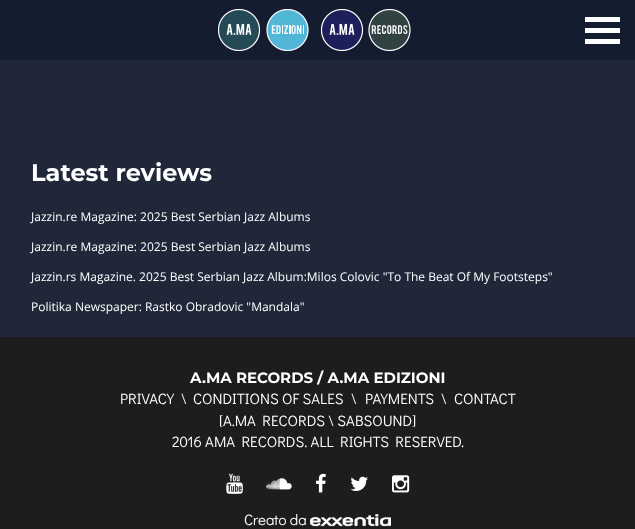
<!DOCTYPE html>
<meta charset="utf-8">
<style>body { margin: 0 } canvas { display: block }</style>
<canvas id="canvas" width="635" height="529"></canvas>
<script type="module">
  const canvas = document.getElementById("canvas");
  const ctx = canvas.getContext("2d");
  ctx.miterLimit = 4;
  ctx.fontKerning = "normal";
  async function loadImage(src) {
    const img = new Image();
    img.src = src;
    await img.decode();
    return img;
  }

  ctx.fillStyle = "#202739";
  ctx.fillRect(0, 0, 635, 529);
  ctx.fillStyle = "#141c2f";
  ctx.fillRect(0, 0, 635, 60);
  ctx.drawImage(await loadImage("img1.png"), 218, 9, 91, 42);
  ctx.drawImage(await loadImage("img2.png"), 321, 9, 90, 42);
  ctx.fillStyle = "#ffffff";
  ctx.fillRect(585, 17, 35, 5);
  ctx.fillRect(585, 28, 35, 5);
  ctx.fillRect(585, 39, 35, 5);
  ctx.font = "bold 24px Montserrat";
  ctx.fillText("Latest reviews", 31, 181);
  ctx.font = "12px Open Sans";
  ctx.fillText("Jazzin.re Magazine: 2025 Best Serbian Jazz Albums", 31, 221);
  ctx.fillText("Jazzin.re Magazine: 2025 Best Serbian Jazz Albums", 31, 251);
  ctx.fillText("Jazzin.rs Magazine. 2025 Best Serbian Jazz Album:Milos Colovic \"To The Beat Of My Footsteps\"", 31, 281);
  ctx.fillText("Politika Newspaper: Rastko Obradovic \"Mandala\"", 31, 311);
  ctx.fillStyle = "#1d1d1d";
  ctx.fillRect(0, 337, 635, 192);
  ctx.font = "bold 15px Montserrat";
  ctx.fillStyle = "#ffffff";
  ctx.fillText("A.MA RECORDS / A.MA EDIZIONI", 190, 383);
  ctx.font = "15px Didact Gothic";
  ctx.fillText("PRIVACY", 120, 404);
  ctx.fillText("\\", 181, 404);
  ctx.fillText("CONDITIONS OF SALES", 193, 404);
  ctx.fillText("\\", 351, 404);
  ctx.fillText("PAYMENTS", 365, 404);
  ctx.fillText("\\", 441, 404);
  ctx.fillText("CONTACT", 454, 404);
  ctx.fillText("[A.MA RECORDS \\ SABSOUND]", 219, 426);
  ctx.fillText("2016 AMA RECORDS. ALL RIGHTS RESERVED.", 172, 447);
  ctx.drawImage(await loadImage("img3.png"), 226, 473, 17, 21);
  ctx.drawImage(await loadImage("img4.png"), 266, 478, 26, 12);
  ctx.drawImage(await loadImage("img5.png"), 316, 473, 10, 20);
  ctx.drawImage(await loadImage("img6.png"), 350, 476, 18, 15);
  ctx.drawImage(await loadImage("img7.png"), 392, 475, 18, 18);
  ctx.fillText("Creato da", 244, 525);
  ctx.drawImage(await loadImage("img8.png"), 310, 514, 81, 13);
</script>
